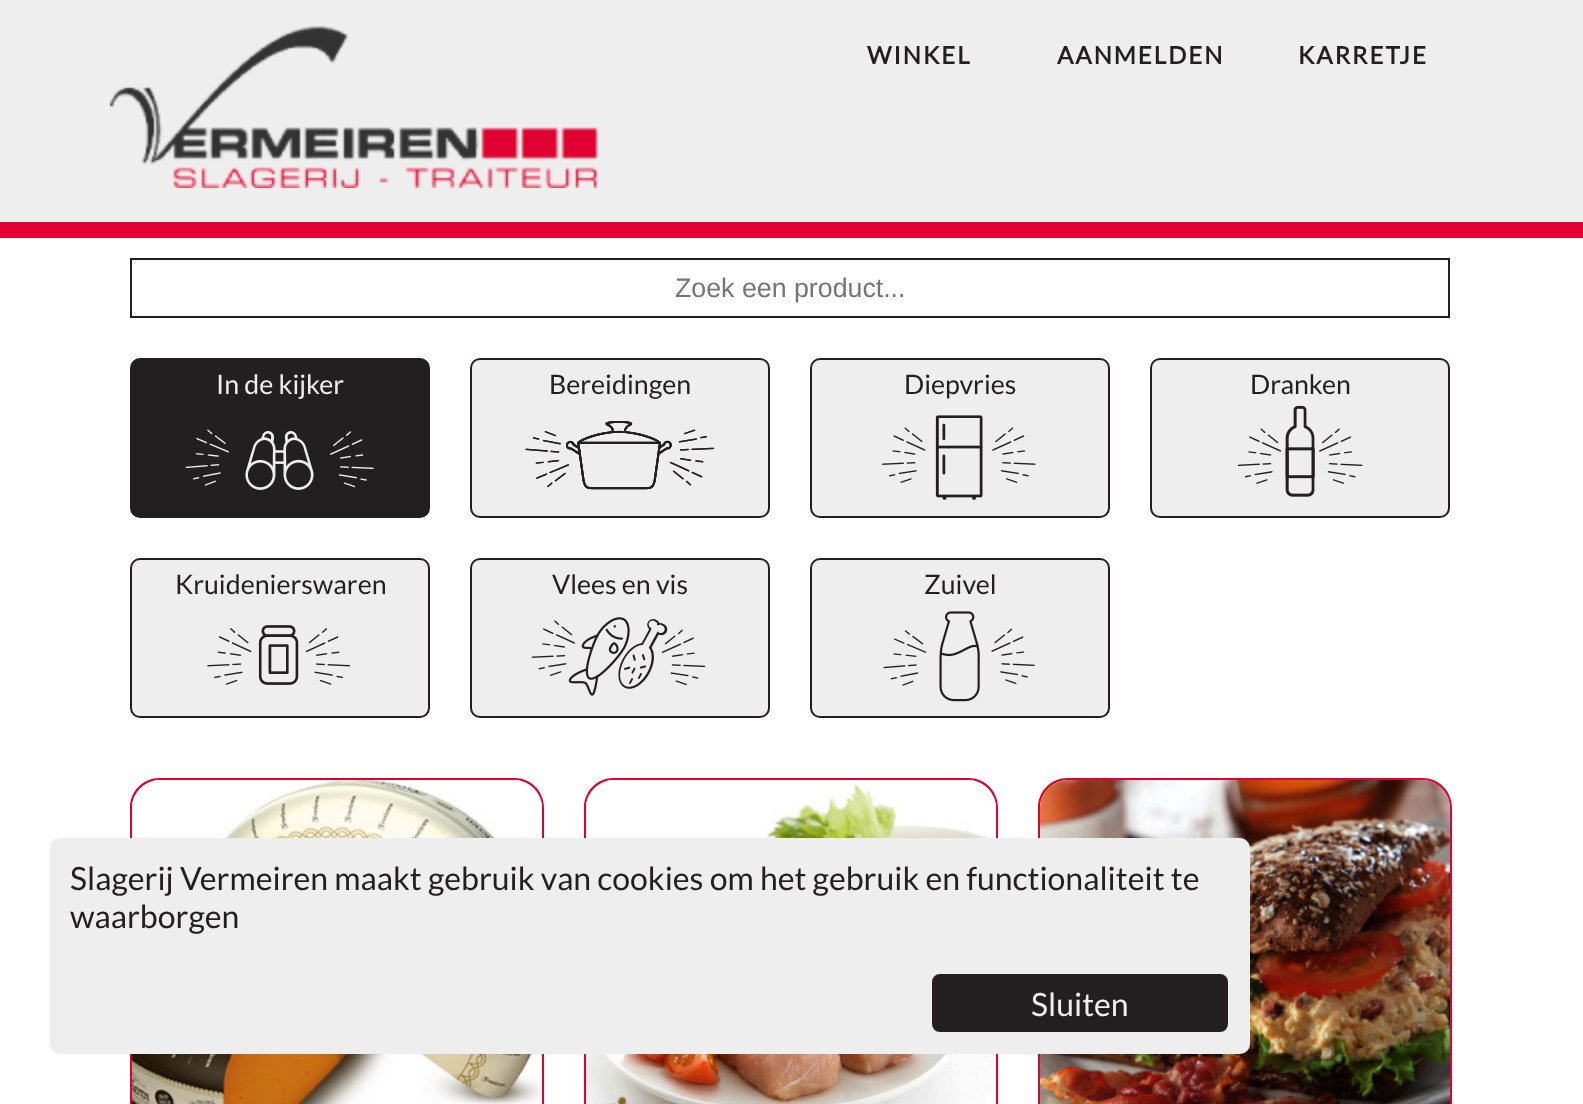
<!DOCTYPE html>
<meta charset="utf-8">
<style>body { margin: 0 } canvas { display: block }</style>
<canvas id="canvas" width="1583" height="1104"></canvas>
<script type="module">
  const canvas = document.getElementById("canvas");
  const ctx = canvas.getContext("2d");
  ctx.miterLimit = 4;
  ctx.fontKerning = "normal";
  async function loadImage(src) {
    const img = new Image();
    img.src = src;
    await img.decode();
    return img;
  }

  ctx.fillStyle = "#ffffff";
  ctx.fillRect(0, 0, 1583, 1104);
  ctx.fillStyle = "#eeeeee";
  ctx.fillRect(0, 0, 1583, 222);
  ctx.fillStyle = "#e00031";
  ctx.fillRect(0, 222, 1583, 16);
  ctx.drawImage(await loadImage("img1.png"), 110, 26, 488, 162);
  ctx.letterSpacing = "2px";
  ctx.font = "bold 24px Lato";
  ctx.fillStyle = "#231f20";
  ctx.fillText("WINKEL", 867, 64);
  ctx.fillText("AANMELDEN", 1057, 64);
  ctx.fillText("KARRETJE", 1298, 64);
  ctx.strokeStyle = "#231f20";
  ctx.lineWidth = 2;
  ctx.strokeRect(131, 259, 1318, 58);
  ctx.letterSpacing = "0px";
  ctx.font = "26.75px Liberation Sans";
  ctx.fillStyle = "#757575";
  ctx.fillText("Zoek een product...", 675, 297);
  ctx.fillStyle = "#231f20";
  ctx.beginPath();
  ctx.roundRect(131, 359, 298, 158, 9);
  ctx.fill();
  ctx.stroke();
  ctx.font = "26.75px Lato";
  ctx.fillStyle = "#eeeeee";
  ctx.fillText("In de kijker", 216, 394);
  ctx.drawImage(await loadImage("img2.png"), 185, 429, 189, 61);
  ctx.beginPath();
  ctx.roundRect(471, 359, 298, 158, 9);
  ctx.fill();
  ctx.stroke();
  ctx.fillStyle = "#231f20";
  ctx.fillText("Bereidingen", 549, 394);
  ctx.drawImage(await loadImage("img3.png"), 525, 421, 189, 69);
  ctx.fillStyle = "#eeeeee";
  ctx.beginPath();
  ctx.roundRect(811, 359, 298, 158, 9);
  ctx.fill();
  ctx.stroke();
  ctx.fillStyle = "#231f20";
  ctx.fillText("Diepvries", 904, 394);
  ctx.drawImage(await loadImage("img4.png"), 882, 415, 154, 85);
  ctx.fillStyle = "#eeeeee";
  ctx.beginPath();
  ctx.roundRect(1151, 359, 298, 158, 9);
  ctx.fill();
  ctx.stroke();
  ctx.fillStyle = "#231f20";
  ctx.fillText("Dranken", 1250, 394);
  ctx.drawImage(await loadImage("img5.png"), 1237, 405, 126, 92);
  ctx.fillStyle = "#eeeeee";
  ctx.beginPath();
  ctx.roundRect(131, 559, 298, 158, 9);
  ctx.fill();
  ctx.stroke();
  ctx.fillStyle = "#231f20";
  ctx.fillText("Kruidenierswaren", 175, 594);
  ctx.drawImage(await loadImage("img6.png"), 207, 625, 143, 60);
  ctx.fillStyle = "#eeeeee";
  ctx.beginPath();
  ctx.roundRect(471, 559, 298, 158, 9);
  ctx.fill();
  ctx.stroke();
  ctx.fillStyle = "#231f20";
  ctx.fillText("Vlees en vis", 552, 594);
  ctx.drawImage(await loadImage("img7.png"), 531, 617, 175, 79);
  ctx.fillStyle = "#eeeeee";
  ctx.beginPath();
  ctx.roundRect(811, 559, 298, 158, 9);
  ctx.fill();
  ctx.stroke();
  ctx.fillStyle = "#231f20";
  ctx.fillText("Zuivel", 924, 594);
  ctx.drawImage(await loadImage("img8.png"), 883, 611, 152, 91);
  ctx.fillStyle = "#e00031";
  ctx.beginPath();
  ctx.moveTo(160, 778);
  ctx.lineTo(514, 778);
  ctx.bezierCurveTo(531, 778, 544, 791, 544, 808);
  ctx.lineTo(544, 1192);
  ctx.lineTo(130, 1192);
  ctx.lineTo(130, 808);
  ctx.bezierCurveTo(130, 791, 143, 778, 160, 778);
  ctx.closePath();
  ctx.moveTo(160, 780);
  ctx.lineTo(514, 780);
  ctx.bezierCurveTo(529, 780, 542, 793, 542, 808);
  ctx.lineTo(542, 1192);
  ctx.lineTo(132, 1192);
  ctx.lineTo(132, 808);
  ctx.bezierCurveTo(132, 793, 145, 780, 160, 780);
  ctx.closePath();
  ctx.fill("evenodd");
  ctx.drawImage(await loadImage("img9.png"), 132, 780, 410, 324);
  ctx.beginPath();
  ctx.moveTo(614, 778);
  ctx.lineTo(968, 778);
  ctx.bezierCurveTo(985, 778, 998, 791, 998, 808);
  ctx.lineTo(998, 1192);
  ctx.lineTo(584, 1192);
  ctx.lineTo(584, 808);
  ctx.bezierCurveTo(584, 791, 597, 778, 614, 778);
  ctx.closePath();
  ctx.moveTo(614, 780);
  ctx.lineTo(968, 780);
  ctx.bezierCurveTo(983, 780, 996, 793, 996, 808);
  ctx.lineTo(996, 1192);
  ctx.lineTo(586, 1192);
  ctx.lineTo(586, 808);
  ctx.bezierCurveTo(586, 793, 599, 780, 614, 780);
  ctx.closePath();
  ctx.fill("evenodd");
  ctx.drawImage(await loadImage("img10.png"), 586, 780, 410, 324);
  ctx.beginPath();
  ctx.moveTo(1068, 778);
  ctx.lineTo(1422, 778);
  ctx.bezierCurveTo(1439, 778, 1452, 791, 1452, 808);
  ctx.lineTo(1452, 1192);
  ctx.lineTo(1038, 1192);
  ctx.lineTo(1038, 808);
  ctx.bezierCurveTo(1038, 791, 1051, 778, 1068, 778);
  ctx.closePath();
  ctx.moveTo(1068, 780);
  ctx.lineTo(1422, 780);
  ctx.bezierCurveTo(1437, 780, 1450, 793, 1450, 808);
  ctx.lineTo(1450, 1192);
  ctx.lineTo(1040, 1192);
  ctx.lineTo(1040, 808);
  ctx.bezierCurveTo(1040, 793, 1053, 780, 1068, 780);
  ctx.closePath();
  ctx.fill("evenodd");
  ctx.drawImage(await loadImage("img11.png"), 1040, 780, 410, 324);
  ctx.fillStyle = "#eeeeee";
  ctx.beginPath();
  ctx.roundRect(50, 838, 1200, 216, 10);
  ctx.fill();
  ctx.font = "32px Lato";
  ctx.fillStyle = "#231f20";
  ctx.fillText("Slagerij Vermeiren maakt gebruik van cookies om het gebruik en functionaliteit te", 70, 890);
  ctx.fillText("waarborgen", 70, 928);
  ctx.beginPath();
  ctx.roundRect(931, 973, 298, 60, 9);
  ctx.fill();
  ctx.strokeStyle = "#eeeeee";
  ctx.stroke();
  ctx.fillStyle = "#eeeeee";
  ctx.fillText("Sluiten", 1031, 1016);
</script>
